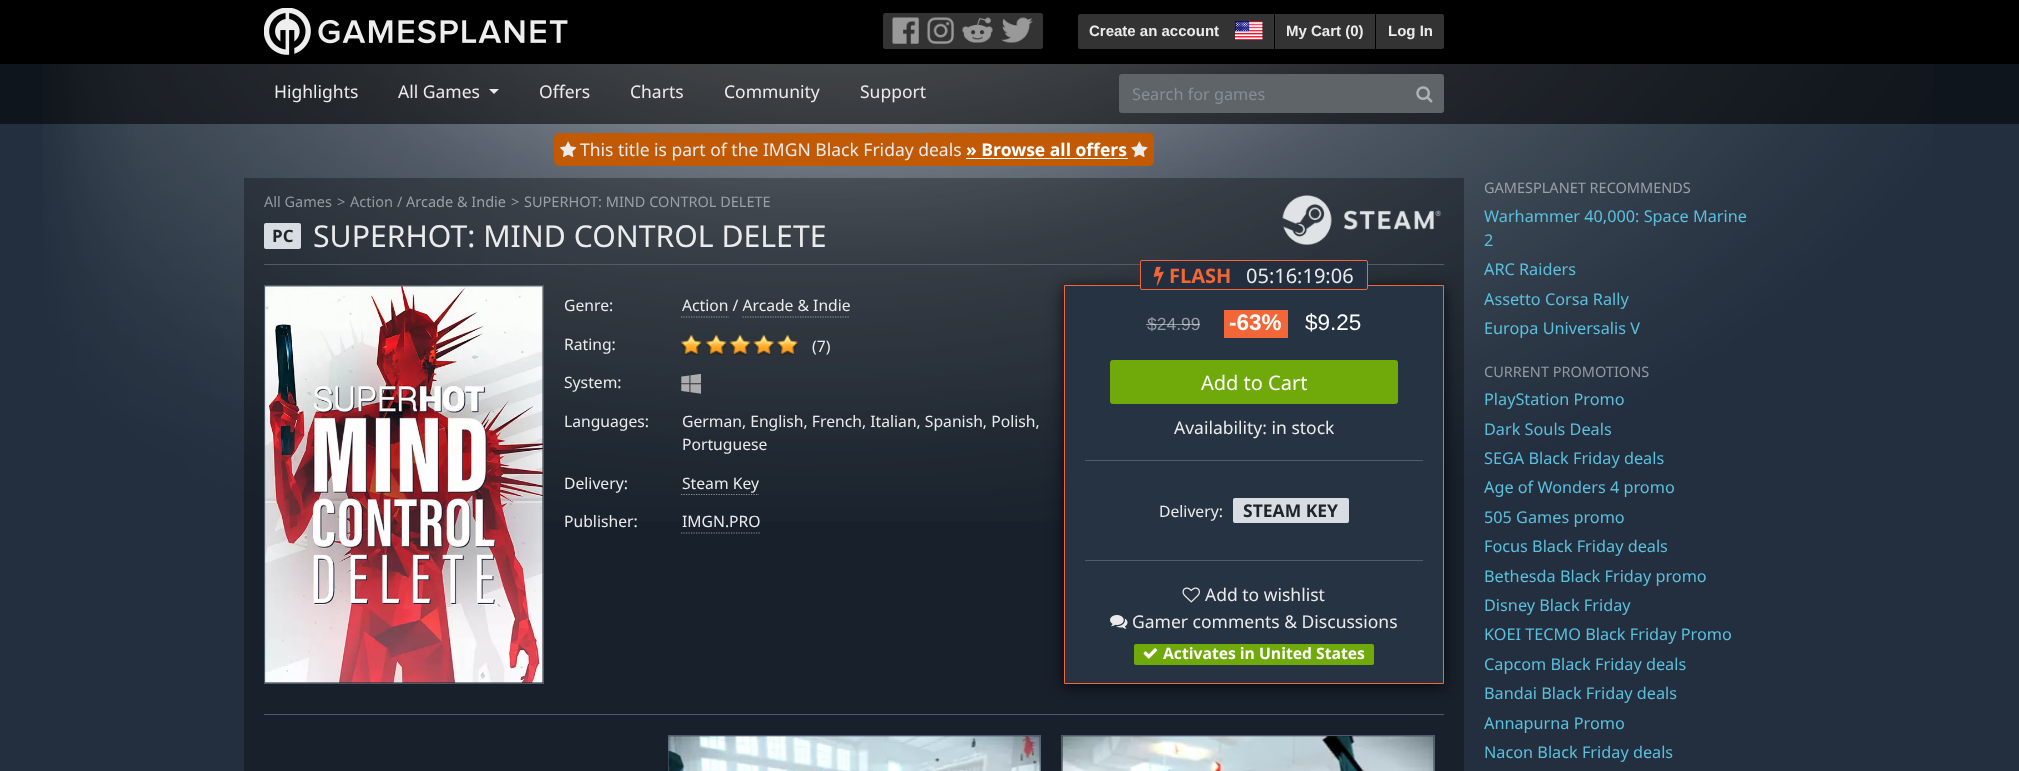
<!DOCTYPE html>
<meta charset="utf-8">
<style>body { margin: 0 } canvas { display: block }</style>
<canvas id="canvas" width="2019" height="771"></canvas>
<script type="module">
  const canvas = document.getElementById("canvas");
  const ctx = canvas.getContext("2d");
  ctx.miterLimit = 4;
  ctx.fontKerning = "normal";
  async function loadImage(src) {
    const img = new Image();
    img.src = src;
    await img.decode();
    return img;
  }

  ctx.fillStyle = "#232f3e";
  ctx.fillRect(0, 0, 2019, 771);
  ctx.drawImage(await loadImage("img1.png"), 43, 64, 1890, 457);
  ctx.fillStyle = "#000000";
  ctx.fillRect(0, 0, 2019, 64);
  ctx.drawImage(await loadImage("img2.png"), 264, 8, 304, 47);
  ctx.fillStyle = "#333333";
  ctx.beginPath();
  ctx.roundRect(883, 13, 41, 36, [2.5, 0, 0, 2.5]);
  ctx.fill();
  ctx.drawImage(await loadImage("img3.png"), 892, 17, 27, 27);
  ctx.fillRect(924, 13, 72, 36);
  ctx.drawImage(await loadImage("img4.png"), 927, 17, 27, 27);
  ctx.beginPath();
  ctx.roundRect(996, 13, 47, 36, [0, 2.5, 2.5, 0]);
  ctx.fill();
  ctx.drawImage(await loadImage("img5.png"), 1001, 17, 32, 26);
  ctx.drawImage(await loadImage("img6.png"), 962, 17, 31, 26);
  ctx.beginPath();
  ctx.roundRect(1078, 14, 152, 35, [2.5, 0, 0, 2.5]);
  ctx.fill();
  ctx.font = "bold 15px Liberation Sans";
  ctx.fillStyle = "#ebebeb";
  ctx.fillText("Create an account", 1089, 36);
  ctx.fillStyle = "#333333";
  ctx.fillRect(1230, 14, 44, 35);
  ctx.drawImage(await loadImage("img7.png"), 1235, 21, 28, 19);
  ctx.fillRect(1275, 14, 100, 35);
  ctx.fillStyle = "#ebebeb";
  ctx.fillText("My Cart (0)", 1286, 36);
  ctx.fillStyle = "#333333";
  ctx.beginPath();
  ctx.roundRect(1376, 14, 68, 35, [0, 2.5, 2.5, 0]);
  ctx.fill();
  ctx.fillStyle = "#ebebeb";
  ctx.fillText("Log In", 1388, 36);
  ctx.fillStyle = "rgba(0, 0, 0, 0.55)";
  ctx.fillRect(0, 64, 2019, 60);
  ctx.font = "17.5px Noto Sans";
  ctx.fillStyle = "#ebebeb";
  ctx.fillText("Highlights", 274, 98);
  ctx.fillText("All Games", 398, 98);
  ctx.beginPath();
  ctx.moveTo(489, 89);
  ctx.lineTo(499, 89);
  ctx.lineTo(494, 94);
  ctx.closePath();
  ctx.fill();
  ctx.fillText("Offers", 539, 98);
  ctx.fillText("Charts", 630, 98);
  ctx.fillText("Community", 724, 98);
  ctx.fillText("Support", 860, 98);
  ctx.fillStyle = "#5f6468";
  ctx.beginPath();
  ctx.roundRect(1119.5, 74.5, 286, 38, [2, 0, 0, 2]);
  ctx.fill();
  ctx.strokeStyle = "#5f6468";
  ctx.stroke();
  ctx.font = "16.25px Noto Sans";
  ctx.fillStyle = "#868e96";
  ctx.fillText("Search for games", 1132, 100);
  ctx.fillStyle = "#5f6468";
  ctx.beginPath();
  ctx.roundRect(1405.5, 74.5, 38, 38, [0, 2, 2, 0]);
  ctx.fill();
  ctx.stroke();
  ctx.drawImage(await loadImage("img8.png"), 1416, 86, 17, 17);
  ctx.fillStyle = "#c25904";
  ctx.beginPath();
  ctx.roundRect(554, 133, 600, 33, 5);
  ctx.fill();
  ctx.drawImage(await loadImage("img9.png"), 560, 141, 17, 16);
  ctx.font = "17.5px Noto Sans";
  ctx.fillStyle = "#ebebeb";
  ctx.fillText("This title is part of the IMGN Black Friday deals", 580, 156);
  ctx.font = "bold 17.5px Noto Sans";
  ctx.fillStyle = "#ffffff";
  ctx.fillText("» Browse all offers", 966, 156);
  ctx.fillRect(966, 158, 162, 1);
  ctx.drawImage(await loadImage("img10.png"), 1131, 141, 17, 16);
  ctx.fillStyle = "rgba(0, 0, 0, 0.3)";
  ctx.fillRect(244, 178, 1220, 593);
  ctx.font = "14.5px Noto Sans";
  ctx.fillStyle = "#949aa1";
  ctx.fillText("All Games", 264, 207);
  ctx.fillText(">", 337, 207);
  ctx.fillText("Action", 350, 207);
  ctx.fillStyle = "#9a9da1";
  ctx.fillText("/", 397, 207);
  ctx.fillStyle = "#9ba0a7";
  ctx.fillText("Arcade & Indie", 406, 207);
  ctx.fillText(">", 511, 207);
  ctx.fillText("SUPERHOT: MIND CONTROL DELETE", 524, 207);
  ctx.fillStyle = "#d7dde2";
  ctx.beginPath();
  ctx.roundRect(264, 223, 37, 26, 2);
  ctx.fill();
  ctx.font = "bold 17px Noto Sans";
  ctx.fillStyle = "#212529";
  ctx.fillText("PC", 272, 242);
  ctx.fillStyle = "#4e5d6c";
  ctx.fillRect(264, 264, 1180, 1);
  ctx.font = "30.2px Noto Sans";
  ctx.fillStyle = "#ebebeb";
  ctx.fillText("SUPERHOT: MIND CONTROL DELETE", 313, 247);
  ctx.drawImage(await loadImage("img11.png"), 1282, 195, 159, 50);
  ctx.strokeStyle = "#4e5d6c";
  ctx.strokeRect(264.5, 285.5, 279, 398);
  ctx.drawImage(await loadImage("img12.png"), 265, 286, 278, 397);
  ctx.font = "15.7px Noto Sans";
  ctx.fillText("Genre:", 564, 311);
  ctx.fillText("Action / Arcade & Indie", 682, 311);
  ctx.beginPath();
  ctx.moveTo(681, 317);
  ctx.lineTo(729, 317);
  ctx.strokeStyle = "#989ca0";
  ctx.lineWidth = 1.2;
  ctx.setLineDash([1.25, 1.25]);
  ctx.stroke();
  ctx.beginPath();
  ctx.moveTo(742.5, 317);
  ctx.lineTo(850, 317);
  ctx.stroke();
  ctx.fillText("Rating:", 564, 350);
  ctx.drawImage(await loadImage("img13.png"), 681, 335, 21, 20);
  ctx.drawImage(await loadImage("img14.png"), 706, 335, 21, 20);
  ctx.drawImage(await loadImage("img15.png"), 730, 335, 20, 20);
  ctx.drawImage(await loadImage("img16.png"), 753, 335, 21, 20);
  ctx.drawImage(await loadImage("img17.png"), 777, 335, 21, 20);
  ctx.fillText("(7)", 812, 352);
  ctx.fillText("System:", 564, 388);
  ctx.drawImage(await loadImage("img18.png"), 681, 374, 20, 20);
  ctx.fillText("Languages:", 564, 427);
  ctx.fillText("German, English, French, Italian, Spanish, Polish,", 682, 427);
  ctx.fillText("Portuguese", 682, 450);
  ctx.fillText("Delivery:", 564, 489);
  ctx.fillText("Steam Key", 682, 489);
  ctx.beginPath();
  ctx.moveTo(681, 494.5);
  ctx.lineTo(759, 494.5);
  ctx.strokeStyle = "#8e9297";
  ctx.stroke();
  ctx.fillText("Publisher:", 564, 527);
  ctx.fillText("IMGN.PRO", 682, 527);
  ctx.beginPath();
  ctx.moveTo(681, 533);
  ctx.lineTo(760, 533);
  ctx.strokeStyle = "#8d9196";
  ctx.stroke();
  ctx.fillStyle = "rgba(0, 0, 0, 0.75)";
  ctx.filter = "blur(7.5px)";
  ctx.beginPath();
  ctx.rect(1064, 288, 380, 398);
  ctx.fill();
  ctx.filter = "none";
  ctx.fillStyle = "#263343";
  ctx.beginPath();
  ctx.rect(1064.5, 285.5, 379, 398);
  ctx.fill();
  ctx.strokeStyle = "#f26638";
  ctx.lineWidth = 1;
  ctx.setLineDash([]);
  ctx.stroke();
  ctx.fillStyle = "#232f3e";
  ctx.beginPath();
  ctx.roundRect(1140.5, 260.5, 227, 29, 1.5);
  ctx.fill();
  ctx.stroke();
  ctx.drawImage(await loadImage("img19.png"), 1153, 266, 11, 20);
  ctx.font = "bold 20px Noto Sans";
  ctx.fillStyle = "#f26638";
  ctx.fillText("FLASH", 1169, 283);
  ctx.font = "20px Noto Sans";
  ctx.fillStyle = "#ebebeb";
  ctx.fillText("05:16:19:06", 1246, 283);
  ctx.font = "17.5px Liberation Sans";
  ctx.fillStyle = "#949aa1";
  ctx.fillText("$24.99", 1147, 330);
  ctx.fillStyle = "rgba(255, 255, 255, 0.5)";
  ctx.fillRect(1146, 324, 54, 1);
  ctx.fillStyle = "#f26638";
  ctx.fillRect(1224, 310, 64, 28);
  ctx.font = "bold 22.5px Liberation Sans";
  ctx.fillStyle = "#ffffff";
  ctx.fillText("-63%", 1229, 330);
  ctx.font = "22.5px Liberation Sans";
  ctx.fillText("$9.25", 1305, 330);
  ctx.fillStyle = "#6faa0a";
  ctx.beginPath();
  ctx.roundRect(1110.5, 360.5, 287, 43, 2);
  ctx.fill();
  ctx.strokeStyle = "#6faa0a";
  ctx.stroke();
  ctx.font = "20px Noto Sans";
  ctx.fillStyle = "#ffffff";
  ctx.fillText("Add to Cart", 1201, 390);
  ctx.font = "17.5px Noto Sans";
  ctx.fillStyle = "#ebebeb";
  ctx.fillText("Availability: in stock", 1174, 434);
  ctx.fillStyle = "#4e5d6c";
  ctx.fillRect(1085, 460, 338, 1);
  ctx.font = "15.7px Noto Sans";
  ctx.fillStyle = "#ebebeb";
  ctx.fillText("Delivery:", 1159, 517);
  ctx.fillStyle = "#d7dde2";
  ctx.beginPath();
  ctx.roundRect(1233, 498, 116, 25, 2);
  ctx.fill();
  ctx.font = "bold 17.5px Noto Sans";
  ctx.fillStyle = "#212529";
  ctx.fillText("STEAM KEY", 1243, 517);
  ctx.fillStyle = "#4e5d6c";
  ctx.fillRect(1085, 560, 338, 1);
  ctx.drawImage(await loadImage("img20.png"), 1182, 587, 18, 16);
  ctx.font = "17.5px Noto Sans";
  ctx.fillStyle = "#ebebeb";
  ctx.fillText("Add to wishlist", 1205, 601);
  ctx.drawImage(await loadImage("img21.png"), 1110, 615, 18, 14);
  ctx.fillText("Gamer comments & Discussions", 1132, 628);
  ctx.fillStyle = "#6faa0a";
  ctx.beginPath();
  ctx.roundRect(1134, 644, 240, 21, 2);
  ctx.fill();
  ctx.drawImage(await loadImage("img22.png"), 1143, 648, 15, 11);
  ctx.font = "bold 15.7px Noto Sans";
  ctx.fillStyle = "#ffffff";
  ctx.fillText("Activates in United States", 1163, 659);
  ctx.fillStyle = "#4e5d6c";
  ctx.fillRect(264, 714, 1180, 1);
  ctx.strokeStyle = "#4e5d6c";
  ctx.strokeRect(668.5, 735.5, 372, 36);
  ctx.drawImage(await loadImage("img23.png"), 668, 736, 373, 35);
  ctx.strokeRect(1061.5, 735.5, 373, 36);
  ctx.drawImage(await loadImage("img24.png"), 1062, 736, 373, 35);
  ctx.font = "14.5px Noto Sans";
  ctx.fillStyle = "#9ba0a7";
  ctx.fillText("GAMESPLANET RECOMMENDS", 1484, 193);
  ctx.font = "16.25px Noto Sans";
  ctx.fillStyle = "#5bc0de";
  ctx.fillText("Warhammer 40,000: Space Marine", 1484, 222);
  ctx.fillText("2", 1484, 246);
  ctx.fillText("ARC Raiders", 1484, 275);
  ctx.fillText("Assetto Corsa Rally", 1484, 305);
  ctx.fillText("Europa Universalis V", 1484, 334);
  ctx.font = "14.5px Noto Sans";
  ctx.fillStyle = "#949aa1";
  ctx.fillText("CURRENT PROMOTIONS", 1484, 377);
  ctx.font = "16.25px Noto Sans";
  ctx.fillStyle = "#5bc0de";
  ctx.fillText("PlayStation Promo", 1484, 405);
  ctx.fillText("Dark Souls Deals", 1484, 435);
  ctx.fillText("SEGA Black Friday deals", 1484, 464);
  ctx.fillText("Age of Wonders 4 promo", 1484, 493);
  ctx.fillText("505 Games promo", 1484, 523);
  ctx.fillText("Focus Black Friday deals", 1484, 552);
  ctx.fillText("Bethesda Black Friday promo", 1484, 582);
  ctx.fillText("Disney Black Friday", 1484, 611);
  ctx.fillText("KOEI TECMO Black Friday Promo", 1484, 640);
  ctx.fillText("Capcom Black Friday deals", 1484, 670);
  ctx.fillText("Bandai Black Friday deals", 1484, 699);
  ctx.fillText("Annapurna Promo", 1484, 729);
  ctx.fillText("Nacon Black Friday deals", 1484, 758);
</script>
